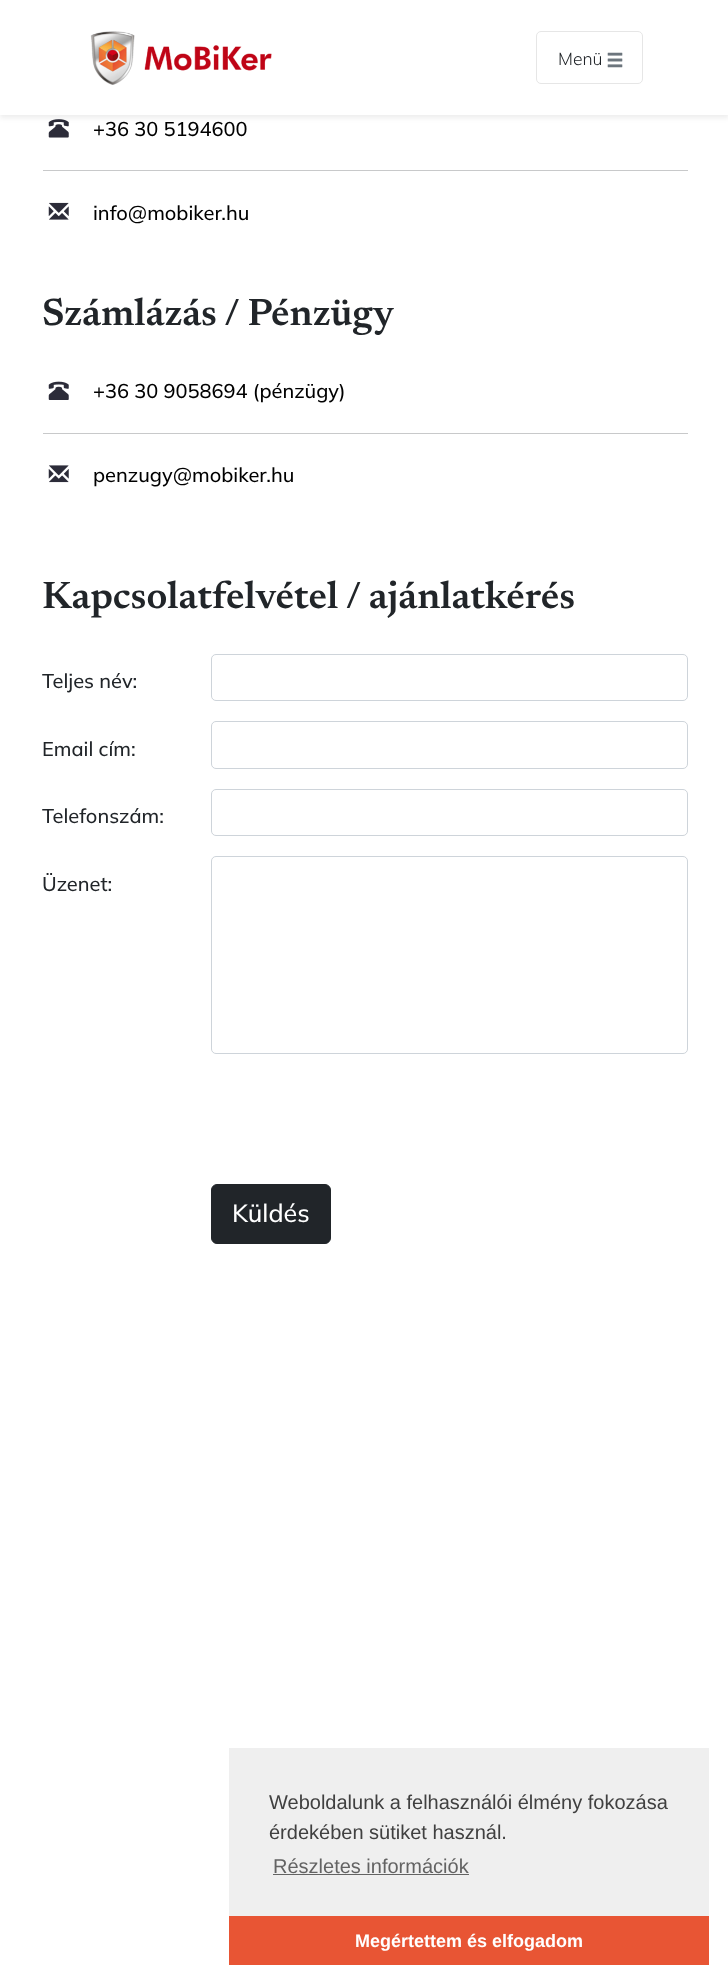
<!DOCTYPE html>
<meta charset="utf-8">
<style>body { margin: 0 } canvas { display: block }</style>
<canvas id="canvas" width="728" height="1985"></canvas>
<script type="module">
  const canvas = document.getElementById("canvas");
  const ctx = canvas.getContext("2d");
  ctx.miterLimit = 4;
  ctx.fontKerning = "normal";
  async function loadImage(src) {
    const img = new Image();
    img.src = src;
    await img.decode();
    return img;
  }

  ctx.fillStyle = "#ffffff";
  ctx.fillRect(0, 0, 728, 1985);
  ctx.drawImage(await loadImage("img3.png"), 48, 119, 21, 19);
  ctx.fillStyle = "rgba(0, 0, 0, 0.07)";
  ctx.filter = "blur(2.5px)";
  ctx.beginPath();
  ctx.rect(0, 3, 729, 115);
  ctx.fill();
  ctx.filter = "none";
  ctx.fillStyle = "#ffffff";
  ctx.fillRect(0, 0, 728, 115);
  ctx.drawImage(await loadImage("img1.png"), 90, 31, 182, 54);
  ctx.beginPath();
  ctx.roundRect(536.5, 31.5, 106, 52, 4.5);
  ctx.strokeStyle = "#e6e6e6";
  ctx.stroke();
  ctx.font = "300 17.5px Mulish";
  ctx.fillStyle = "#212529";
  ctx.fillText("Menü", 558, 65);
  ctx.drawImage(await loadImage("img2.png"), 607, 52, 16, 16);
  ctx.font = "500 20px Mulish";
  ctx.fillStyle = "#000000";
  ctx.fillText("+36 30 5194600", 93, 136);
  ctx.fillStyle = "#c8c9ca";
  ctx.fillRect(43, 170, 645, 1);
  ctx.drawImage(await loadImage("img4.png"), 48, 202, 21, 18);
  ctx.fillStyle = "#000000";
  ctx.fillText("info@mobiker.hu", 93, 220);
  ctx.font = "600 38.5px Newsreader";
  ctx.fillStyle = "#212529";
  ctx.fillText("Számlázás / Pénzügy", 42, 325);
  ctx.drawImage(await loadImage("img5.png"), 48, 381, 21, 19);
  ctx.font = "500 20px Mulish";
  ctx.fillStyle = "#000000";
  ctx.fillText("+36 30 9058694 (pénzügy)", 93, 398);
  ctx.fillStyle = "#c8c9ca";
  ctx.fillRect(43, 433, 645, 1);
  ctx.drawImage(await loadImage("img6.png"), 48, 465, 21, 18);
  ctx.fillStyle = "#000000";
  ctx.fillText("penzugy@mobiker.hu", 93, 482);
  ctx.font = "600 38.5px Newsreader";
  ctx.fillStyle = "#212529";
  ctx.fillText("Kapcsolatfelvétel / ajánlatkérés", 42, 608);
  ctx.font = "500 20px Mulish";
  ctx.fillText("Teljes név:", 42, 688);
  ctx.beginPath();
  ctx.roundRect(211.5, 654.5, 476, 46, 4.5);
  ctx.strokeStyle = "#ced4da";
  ctx.stroke();
  ctx.fillText("Email cím:", 42, 756);
  ctx.beginPath();
  ctx.roundRect(211.5, 721.5, 476, 47, 4.5);
  ctx.stroke();
  ctx.fillText("Telefonszám:", 42, 823);
  ctx.beginPath();
  ctx.roundRect(211.5, 789.5, 476, 46, 4.5);
  ctx.stroke();
  ctx.fillText("Üzenet:", 42, 891);
  ctx.beginPath();
  ctx.roundRect(211.5, 856.5, 476, 197, 4.5);
  ctx.stroke();
  ctx.beginPath();
  ctx.roundRect(211.5, 1184.5, 119, 59, 5.5);
  ctx.fill();
  ctx.strokeStyle = "#212529";
  ctx.stroke();
  ctx.font = "500 25px Mulish";
  ctx.fillStyle = "#ffffff";
  ctx.fillText("Küldés", 232, 1222);
  ctx.fillStyle = "#efefef";
  ctx.fillRect(229, 1748, 480, 168);
  ctx.font = "20px Liberation Sans";
  ctx.fillStyle = "#404040";
  ctx.fillText("Weboldalunk a felhasználói élmény fokozása", 269, 1809);
  ctx.fillText("érdekében sütiket használ.", 269, 1839);
  ctx.fillStyle = "#636363";
  ctx.fillText("Részletes információk", 273, 1873);
  ctx.fillRect(273, 1874, 196, 1);
  ctx.fillStyle = "#e85534";
  ctx.fillRect(229, 1916, 480, 49);
  ctx.font = "bold 18px Liberation Sans";
  ctx.fillStyle = "#ffffff";
  ctx.fillText("Megértettem és elfogadom", 355, 1947);
</script>
